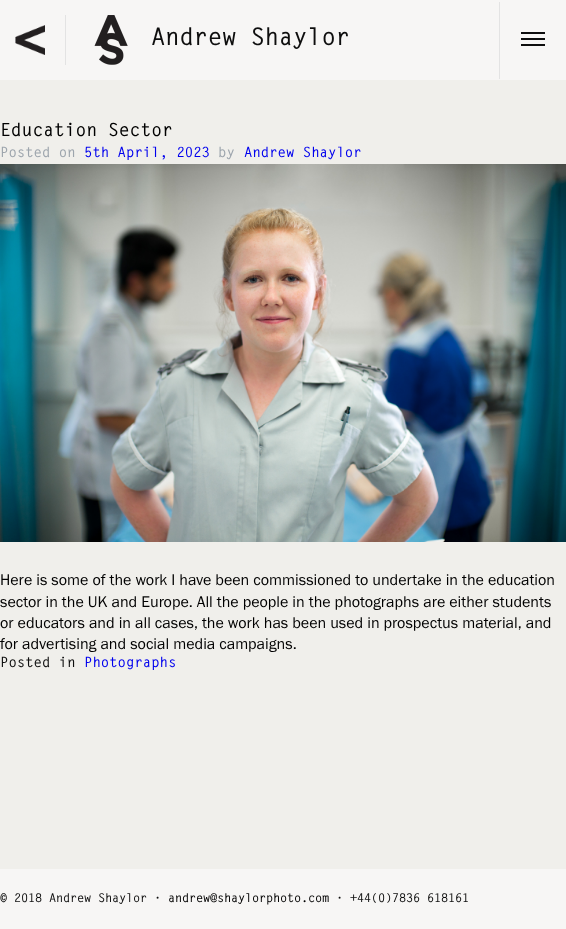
<!DOCTYPE html>
<meta charset="utf-8">
<style>body { margin: 0 } canvas { display: block }</style>
<canvas id="canvas" width="566" height="929"></canvas>
<script type="module">
  const canvas = document.getElementById("canvas");
  const ctx = canvas.getContext("2d");
  ctx.miterLimit = 4;
  ctx.fontKerning = "normal";
  async function loadImage(src) {
    const img = new Image();
    img.src = src;
    await img.decode();
    return img;
  }

  ctx.fillStyle = "#f0efeb";
  ctx.fillRect(0, 0, 566, 929);
  ctx.fillStyle = "#f7f6f5";
  ctx.fillRect(0, 0, 566, 80);
  ctx.fillStyle = "#e3e3e3";
  ctx.fillRect(65, 15, 1, 50);
  ctx.drawImage(await loadImage("img1.png"), 15, 25, 30, 30);
  ctx.drawImage(await loadImage("img2.png"), 94, 15, 34, 50);
  ctx.letterSpacing = "-0.2px";
  ctx.font = "bold 24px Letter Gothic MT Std";
  ctx.fillStyle = "#0e0e0e";
  ctx.fillText("Andrew Shaylor", 151, 45);
  ctx.fillStyle = "#e3e3e3";
  ctx.fillRect(499, 2, 1, 77);
  ctx.fillStyle = "#0e0e0e";
  ctx.fillRect(521, 32, 24, 2);
  ctx.fillRect(521, 44, 24, 2);
  ctx.fillRect(521, 38, 24, 2);
  ctx.letterSpacing = "0px";
  ctx.font = "bold 18px Letter Gothic MT Std";
  ctx.fillStyle = "#000000";
  ctx.fillText("Education Sector", 0, 136);
  ctx.font = "bold 14px Letter Gothic MT Std";
  ctx.fillStyle = "#9da5ad";
  ctx.fillText("Posted on", 0, 157);
  ctx.fillStyle = "#0000ee";
  ctx.fillText("5th April, 2023", 84, 157);
  ctx.fillStyle = "#9da5ad";
  ctx.fillText("by", 218, 157);
  ctx.fillStyle = "#0000ee";
  ctx.fillText("Andrew Shaylor", 244, 157);
  ctx.drawImage(await loadImage("img3.png"), 0, 164, 566, 378);
  ctx.font = "16px Franklin Gothic";
  ctx.fillStyle = "#000000";
  ctx.fillText("Here is some of the work I have been commissioned to undertake in the education", 0, 585);
  ctx.fillText("sector in the UK and Europe. All the people in the photographs are either students", 0, 607);
  ctx.fillText("or educators and in all cases, the work has been used in prospectus material, and", 0, 628);
  ctx.fillText("for advertising and social media campaigns.", 0, 649);
  ctx.font = "bold 14px Letter Gothic MT Std";
  ctx.fillStyle = "#0e0e0e";
  ctx.fillText("Posted in", 0, 667);
  ctx.fillStyle = "#0000ee";
  ctx.fillText("Photographs", 84, 667);
  ctx.fillStyle = "#f7f6f5";
  ctx.fillRect(0, 869, 566, 60);
  ctx.letterSpacing = "-0.2px";
  ctx.font = "bold 12px Letter Gothic MT Std";
  ctx.fillStyle = "#0e0e0e";
  ctx.fillText("© 2018 Andrew Shaylor ·", 0, 902);
  ctx.fillStyle = "#000000";
  ctx.fillText("andrew@shaylorphoto.com", 168, 902);
  ctx.fillStyle = "#0e0e0e";
  ctx.fillText("· +44(0)7836 618161", 336, 902);
</script>
